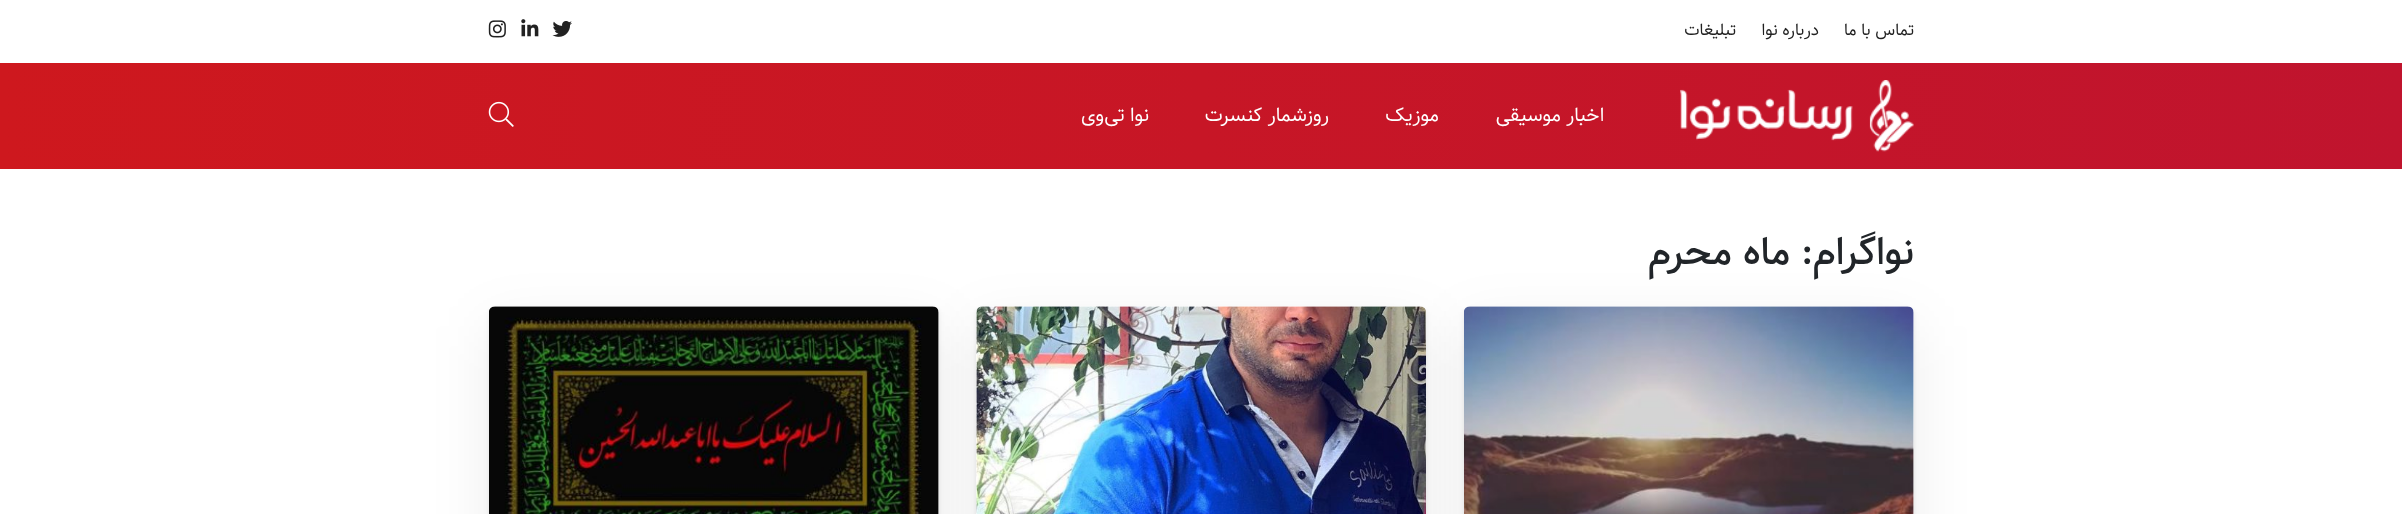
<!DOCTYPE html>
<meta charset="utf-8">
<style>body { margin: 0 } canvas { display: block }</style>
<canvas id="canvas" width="2402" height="514"></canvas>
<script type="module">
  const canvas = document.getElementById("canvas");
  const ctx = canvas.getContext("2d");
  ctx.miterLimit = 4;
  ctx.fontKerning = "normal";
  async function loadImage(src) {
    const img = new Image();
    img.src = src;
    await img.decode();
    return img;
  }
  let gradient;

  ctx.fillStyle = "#ffffff";
  ctx.fillRect(0, 0, 2402, 514);
  ctx.direction = "rtl";
  ctx.font = "17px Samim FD";
  ctx.fillStyle = "#212121";
  ctx.fillText("تماس با ما", 1914, 35);
  ctx.fillText("درباره نوا", 1819, 35);
  ctx.fillText("تبلیغات", 1736, 35);
  ctx.drawImage(await loadImage("img1.png"), 552, 21, 20, 16);
  ctx.drawImage(await loadImage("img2.png"), 521, 19, 18, 18);
  ctx.drawImage(await loadImage("img3.png"), 488, 20, 18, 18);
  gradient = ctx.createLinearGradient(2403, 116, 0, 116);
  gradient.addColorStop(0, "#c0142e");
  gradient.addColorStop(1, "#ce181e");
  ctx.fillStyle = gradient;
  ctx.fillRect(0, 63, 2402, 106);
  ctx.drawImage(await loadImage("img4.png"), 1680, 80, 234, 72);
  ctx.font = "20px Samim FD";
  ctx.fillStyle = "#ffffff";
  ctx.fillText("اخبار موسیقی", 1604, 121);
  ctx.fillText("موزیک", 1439, 121);
  ctx.fillText("روزشمار کنسرت", 1329, 121);
  ctx.fillText("نوا تی‌وی", 1149, 121);
  ctx.drawImage(await loadImage("img5.png"), 488, 101, 26, 26);
  ctx.font = "500 40px Samim FD";
  ctx.fillStyle = "#212529";
  ctx.fillText("نواگرام:", 1914, 264);
  ctx.fillText("ماه محرم", 1790, 264);
  ctx.fillStyle = "rgba(0, 0, 0, 0.07)";
  ctx.filter = "blur(2.5px)";
  ctx.beginPath();
  ctx.roundRect(1464, 309, 450, 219, 6);
  ctx.fill();
  ctx.filter = "none";
  ctx.filter = "blur(30px)";
  ctx.beginPath();
  ctx.roundRect(1464, 326, 450, 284, 6);
  ctx.fill();
  ctx.filter = "none";
  ctx.fillStyle = "#ffffff";
  ctx.beginPath();
  ctx.roundRect(1464, 306, 450, 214, 6);
  ctx.fill();
  ctx.fillStyle = "rgba(0, 0, 0, 0.07)";
  ctx.filter = "blur(30px)";
  ctx.beginPath();
  ctx.roundRect(976, 326, 450, 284, 6);
  ctx.fill();
  ctx.filter = "none";
  ctx.drawImage(await loadImage("img6.png"), 1464, 306, 450, 208);
  ctx.filter = "blur(2.5px)";
  ctx.beginPath();
  ctx.roundRect(976, 309, 450, 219, 6);
  ctx.fill();
  ctx.filter = "none";
  ctx.fillStyle = "#ffffff";
  ctx.beginPath();
  ctx.roundRect(976, 306, 450, 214, 6);
  ctx.fill();
  ctx.fillStyle = "rgba(0, 0, 0, 0.07)";
  ctx.filter = "blur(30px)";
  ctx.beginPath();
  ctx.roundRect(489, 326, 450, 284, 6);
  ctx.fill();
  ctx.filter = "none";
  ctx.drawImage(await loadImage("img7.png"), 976, 306, 450, 208);
  ctx.filter = "blur(2.5px)";
  ctx.beginPath();
  ctx.roundRect(489, 309, 450, 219, 6);
  ctx.fill();
  ctx.filter = "none";
  ctx.fillStyle = "#ffffff";
  ctx.beginPath();
  ctx.roundRect(489, 306, 450, 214, 6);
  ctx.fill();
  ctx.drawImage(await loadImage("img8.png"), 489, 306, 450, 208);
</script>
